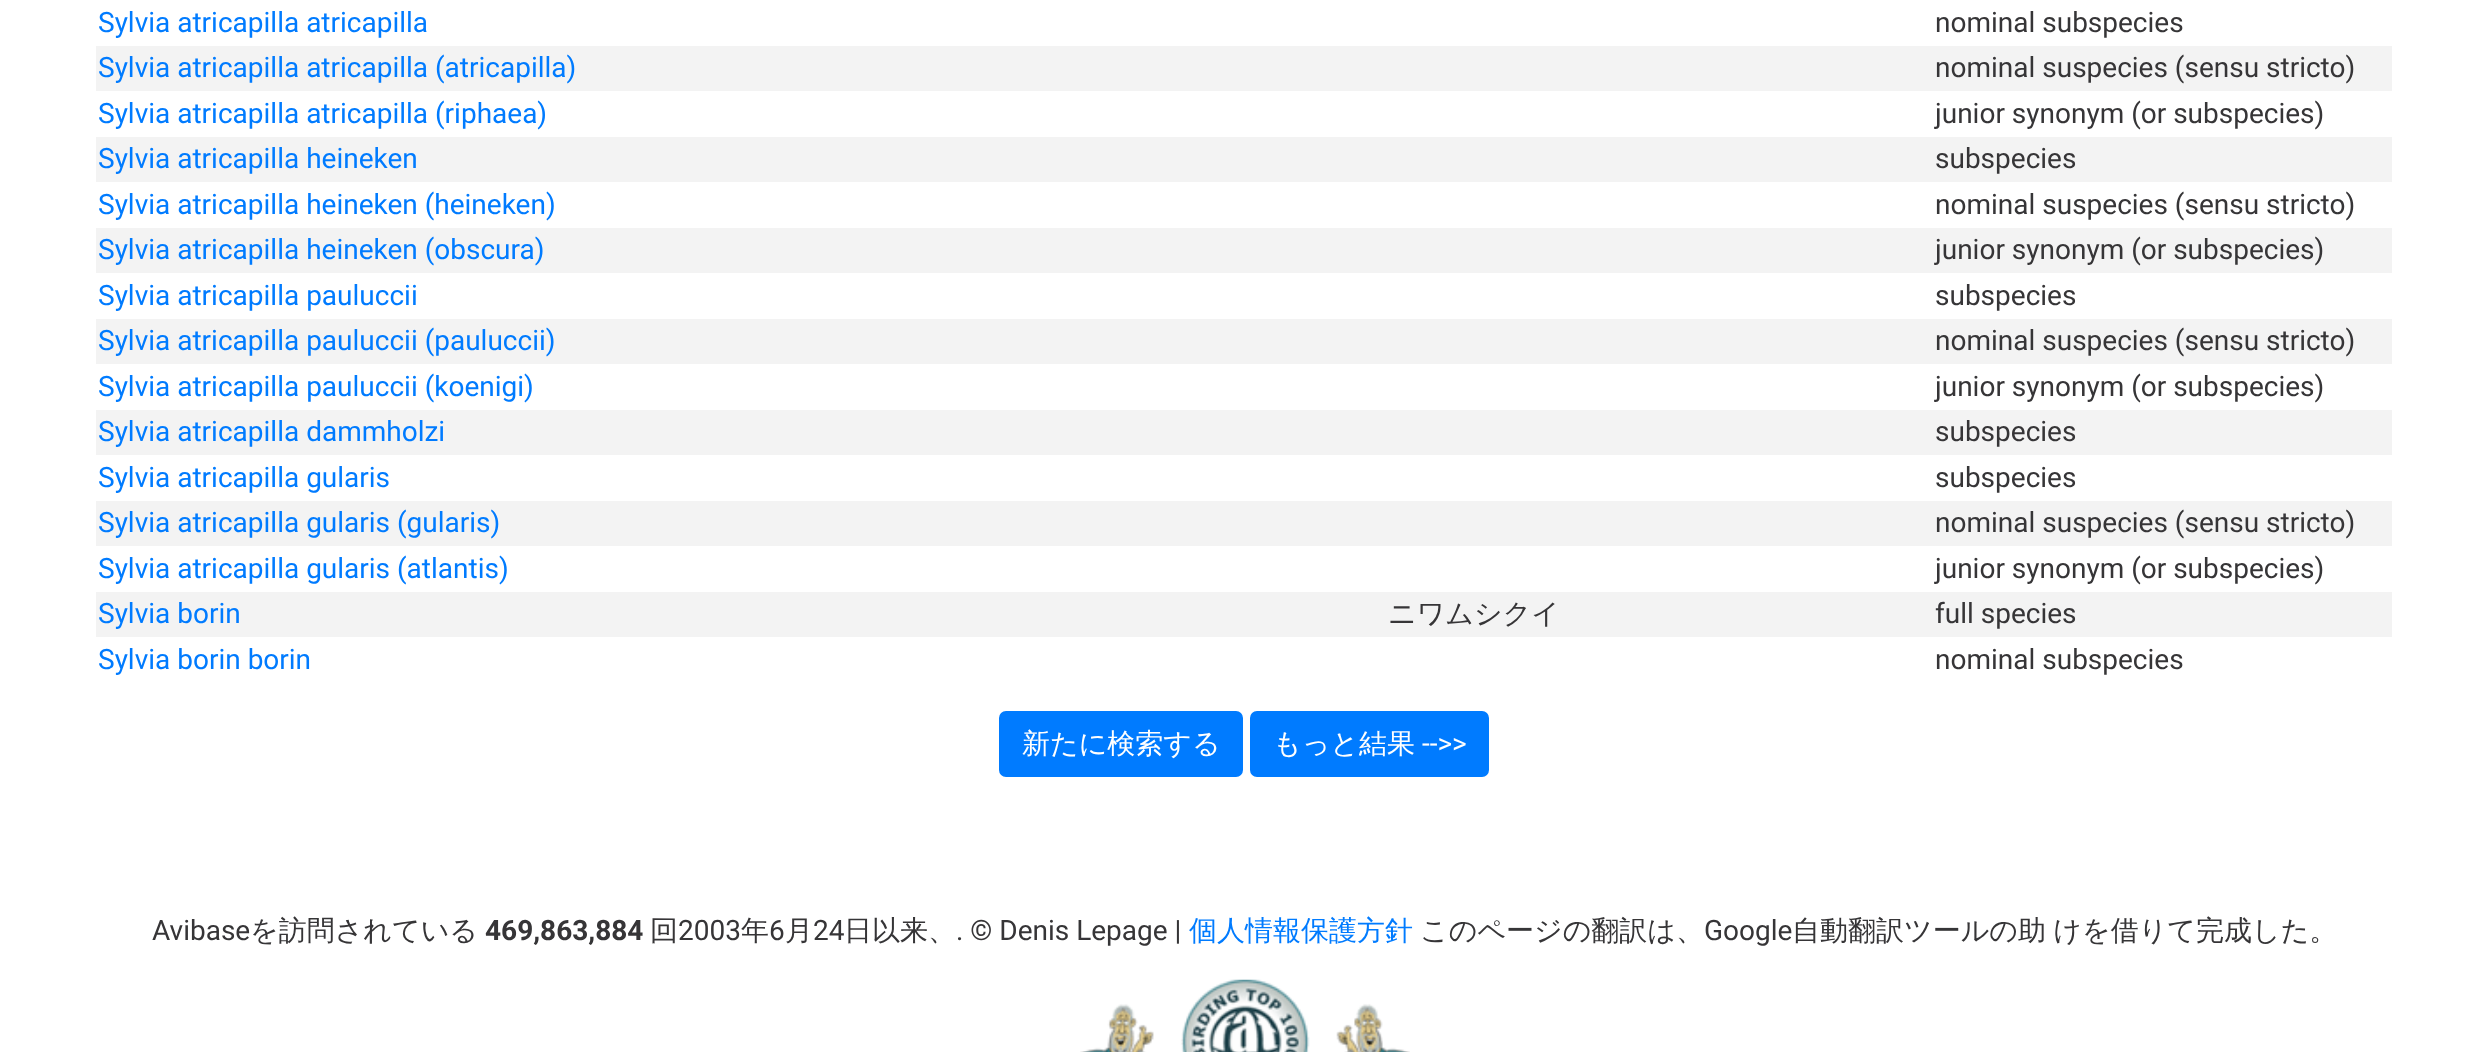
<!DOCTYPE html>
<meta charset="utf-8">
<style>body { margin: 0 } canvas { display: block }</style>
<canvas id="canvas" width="2487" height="1052"></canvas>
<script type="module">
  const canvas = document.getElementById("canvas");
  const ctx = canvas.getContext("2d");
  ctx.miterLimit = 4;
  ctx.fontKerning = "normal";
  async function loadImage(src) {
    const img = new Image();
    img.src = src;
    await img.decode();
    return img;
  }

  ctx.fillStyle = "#ffffff";
  ctx.fillRect(0, 0, 2487, 1052);
  ctx.font = "28px Roboto";
  ctx.fillStyle = "#007bff";
  ctx.fillText("Sylvia atricapilla atricapilla", 98, 32);
  ctx.fillStyle = "#363537";
  ctx.fillText("nominal subspecies", 1935, 32);
  ctx.fillStyle = "#f3f3f3";
  ctx.fillRect(96, 46, 2296, 45);
  ctx.fillStyle = "#007bff";
  ctx.fillText("Sylvia atricapilla atricapilla (atricapilla)", 98, 77);
  ctx.fillStyle = "#363537";
  ctx.fillText("nominal suspecies (sensu stricto)", 1935, 77);
  ctx.fillStyle = "#007bff";
  ctx.fillText("Sylvia atricapilla atricapilla (riphaea)", 98, 123);
  ctx.fillStyle = "#363537";
  ctx.fillText("junior synonym (or subspecies)", 1935, 123);
  ctx.fillStyle = "#f3f3f3";
  ctx.fillRect(96, 137, 2296, 45);
  ctx.fillStyle = "#007bff";
  ctx.fillText("Sylvia atricapilla heineken", 98, 168);
  ctx.fillStyle = "#363537";
  ctx.fillText("subspecies", 1935, 168);
  ctx.fillStyle = "#007bff";
  ctx.fillText("Sylvia atricapilla heineken (heineken)", 98, 214);
  ctx.fillStyle = "#363537";
  ctx.fillText("nominal suspecies (sensu stricto)", 1935, 214);
  ctx.fillStyle = "#f3f3f3";
  ctx.fillRect(96, 228, 2296, 45);
  ctx.fillStyle = "#007bff";
  ctx.fillText("Sylvia atricapilla heineken (obscura)", 98, 259);
  ctx.fillStyle = "#363537";
  ctx.fillText("junior synonym (or subspecies)", 1935, 259);
  ctx.fillStyle = "#007bff";
  ctx.fillText("Sylvia atricapilla pauluccii", 98, 305);
  ctx.fillStyle = "#363537";
  ctx.fillText("subspecies", 1935, 305);
  ctx.fillStyle = "#f3f3f3";
  ctx.fillRect(96, 319, 2296, 45);
  ctx.fillStyle = "#007bff";
  ctx.fillText("Sylvia atricapilla pauluccii (pauluccii)", 98, 350);
  ctx.fillStyle = "#363537";
  ctx.fillText("nominal suspecies (sensu stricto)", 1935, 350);
  ctx.fillStyle = "#007bff";
  ctx.fillText("Sylvia atricapilla pauluccii (koenigi)", 98, 396);
  ctx.fillStyle = "#363537";
  ctx.fillText("junior synonym (or subspecies)", 1935, 396);
  ctx.fillStyle = "#f3f3f3";
  ctx.fillRect(96, 410, 2296, 45);
  ctx.fillStyle = "#007bff";
  ctx.fillText("Sylvia atricapilla dammholzi", 98, 441);
  ctx.fillStyle = "#363537";
  ctx.fillText("subspecies", 1935, 441);
  ctx.fillStyle = "#007bff";
  ctx.fillText("Sylvia atricapilla gularis", 98, 487);
  ctx.fillStyle = "#363537";
  ctx.fillText("subspecies", 1935, 487);
  ctx.fillStyle = "#f3f3f3";
  ctx.fillRect(96, 501, 2296, 45);
  ctx.fillStyle = "#007bff";
  ctx.fillText("Sylvia atricapilla gularis (gularis)", 98, 532);
  ctx.fillStyle = "#363537";
  ctx.fillText("nominal suspecies (sensu stricto)", 1935, 532);
  ctx.fillStyle = "#007bff";
  ctx.fillText("Sylvia atricapilla gularis (atlantis)", 98, 578);
  ctx.fillStyle = "#363537";
  ctx.fillText("junior synonym (or subspecies)", 1935, 578);
  ctx.fillStyle = "#f3f3f3";
  ctx.fillRect(96, 592, 2296, 45);
  ctx.fillStyle = "#007bff";
  ctx.fillText("Sylvia borin", 98, 623);
  ctx.font = "500 28px WenQuanYi Zen Hei";
  ctx.fillStyle = "#363537";
  ctx.fillText("ニワムシクイ", 1388, 623);
  ctx.font = "28px Roboto";
  ctx.fillText("full species", 1935, 623);
  ctx.fillStyle = "#007bff";
  ctx.fillText("Sylvia borin borin", 98, 669);
  ctx.fillStyle = "#363537";
  ctx.fillText("nominal subspecies", 1935, 669);
  ctx.fillStyle = "#007bff";
  ctx.beginPath();
  ctx.roundRect(1000, 712, 242, 64, 6);
  ctx.fill();
  ctx.strokeStyle = "#007bff";
  ctx.lineWidth = 2;
  ctx.stroke();
  ctx.font = "500 28px WenQuanYi Zen Hei";
  ctx.fillStyle = "#ffffff";
  ctx.fillText("新たに検索する", 1022, 753);
  ctx.fillStyle = "#007bff";
  ctx.beginPath();
  ctx.roundRect(1251, 712, 237, 64, 6);
  ctx.fill();
  ctx.stroke();
  ctx.fillStyle = "#ffffff";
  ctx.fillText("もっと結果", 1273, 753);
  ctx.font = "28px Roboto";
  ctx.fillText("-->>", 1422, 753);
  ctx.fillStyle = "#363537";
  ctx.fillText("Avibase", 152, 940);
  ctx.font = "500 28px WenQuanYi Zen Hei";
  ctx.fillText("を訪問されている", 250, 940);
  ctx.font = "bold 28px Roboto";
  ctx.fillText("469,863,884", 485, 940);
  ctx.font = "500 28px WenQuanYi Zen Hei";
  ctx.fillText("回", 650, 940);
  ctx.font = "28px Roboto";
  ctx.fillText("2003", 678, 940);
  ctx.font = "500 28px WenQuanYi Zen Hei";
  ctx.fillText("年", 741, 940);
  ctx.font = "28px Roboto";
  ctx.fillText("6", 769, 940);
  ctx.font = "500 28px WenQuanYi Zen Hei";
  ctx.fillText("月", 785, 940);
  ctx.font = "28px Roboto";
  ctx.fillText("24", 813, 940);
  ctx.font = "500 28px WenQuanYi Zen Hei";
  ctx.fillText("日以来、", 844, 940);
  ctx.font = "28px Roboto";
  ctx.fillText(". © Denis Lepage |", 956, 940);
  ctx.font = "500 28px WenQuanYi Zen Hei";
  ctx.fillStyle = "#007bff";
  ctx.fillText("個人情報保護方針", 1189, 940);
  ctx.fillStyle = "#363537";
  ctx.fillText("このページの翻訳は、", 1420, 940);
  ctx.font = "28px Roboto";
  ctx.fillText("Google", 1704, 940);
  ctx.wordSpacing = "-1px";
  ctx.font = "500 28px WenQuanYi Zen Hei";
  ctx.fillText("自動翻訳ツールの助 けを借りて完成した。", 1792, 940);
  ctx.drawImage(await loadImage("img1.png"), 1080, 979, 330, 73);
</script>
